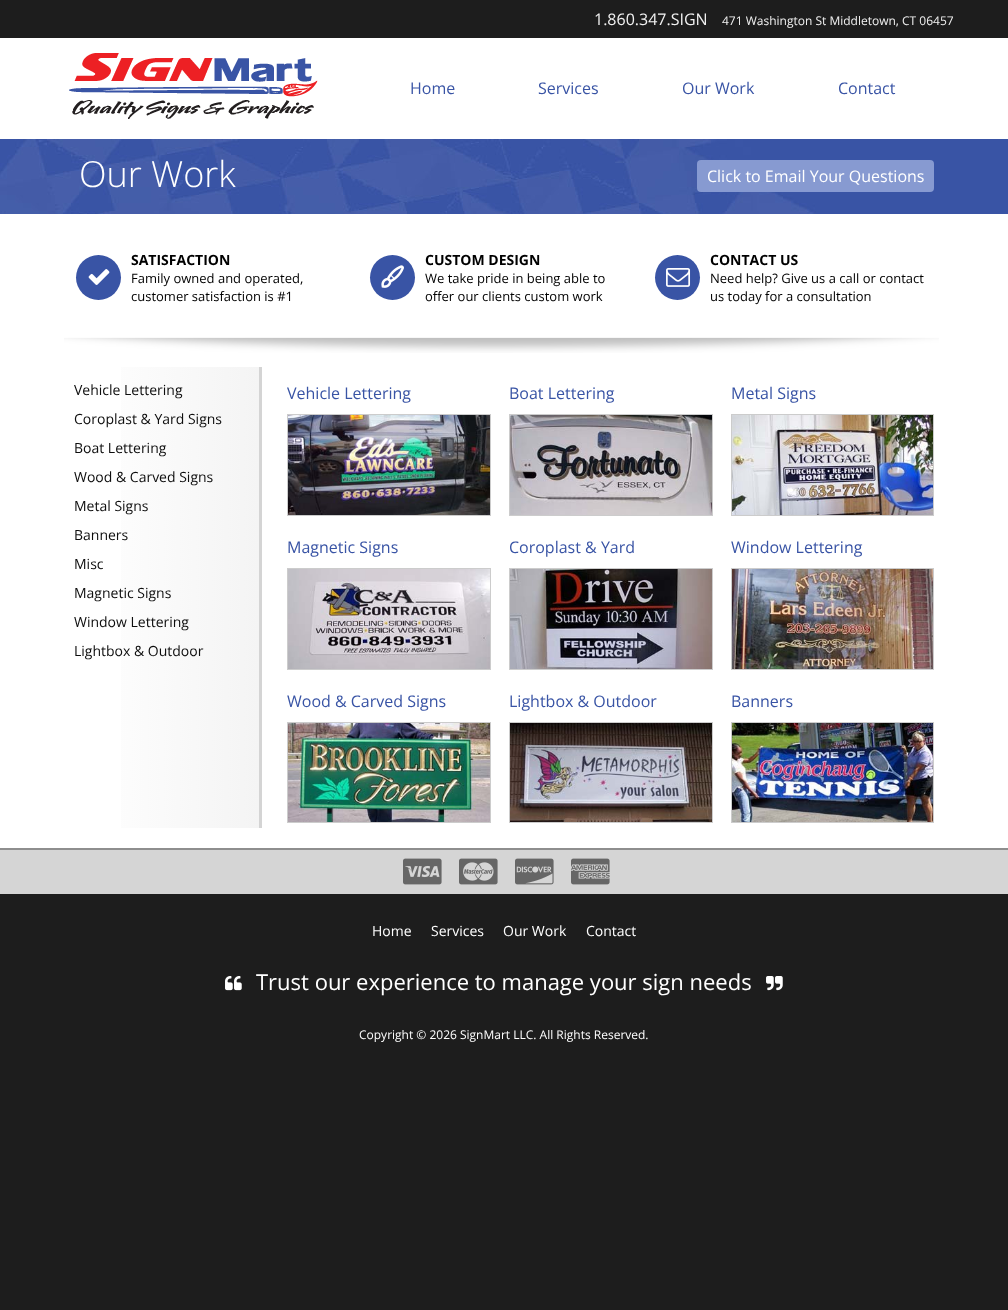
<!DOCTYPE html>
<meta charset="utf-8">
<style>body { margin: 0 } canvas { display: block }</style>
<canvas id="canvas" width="1008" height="1310"></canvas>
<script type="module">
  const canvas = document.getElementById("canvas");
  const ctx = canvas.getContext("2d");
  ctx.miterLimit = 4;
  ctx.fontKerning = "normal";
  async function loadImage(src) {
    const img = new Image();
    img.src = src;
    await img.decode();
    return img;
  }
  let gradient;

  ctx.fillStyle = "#1d1d1d";
  ctx.fillRect(0, 0, 1008, 1310);
  ctx.fillStyle = "#ffffff";
  ctx.fillRect(0, 38, 1008, 810);
  ctx.font = "16px Open Sans";
  ctx.fillStyle = "#f1f1f1";
  ctx.fillText("1.860.347.SIGN", 594, 25);
  ctx.font = "12px Open Sans";
  ctx.fillText("471 Washington St Middletown, CT 06457", 722, 25);
  ctx.drawImage(await loadImage("img1.png"), 69, 53, 249, 66);
  ctx.font = "16px Open Sans";
  ctx.fillStyle = "#3954a5";
  ctx.fillText("Home", 410, 94);
  ctx.fillText("Services", 538, 94);
  ctx.fillText("Our Work", 682, 94);
  ctx.fillText("Contact", 838, 94);
  ctx.fillRect(816, 139, 192, 75);
  ctx.drawImage(await loadImage("img2.png"), 0, 139, 816, 75);
  ctx.font = "300 36px Open Sans";
  ctx.fillStyle = "#ffffff";
  ctx.fillText("Our Work", 79, 187);
  ctx.fillStyle = "#879ad1";
  ctx.beginPath();
  ctx.roundRect(697, 160, 237, 32, 4);
  ctx.fill();
  ctx.font = "16px Open Sans";
  ctx.fillStyle = "#ffffff";
  ctx.fillText("Click to Email Your Questions", 707, 182);
  ctx.drawImage(await loadImage("img3.png"), 64, 337, 875, 16);
  ctx.fillStyle = "#3954a5";
  ctx.beginPath();
  ctx.arc(98.5, 277.5, 22.5, 0, Math.PI * 2);
  ctx.fill();
  ctx.drawImage(await loadImage("img4.png"), 88, 269, 22, 16);
  ctx.font = "bold 14px Open Sans";
  ctx.fillStyle = "#000000";
  ctx.fillText("SATISFACTION", 131, 265);
  ctx.font = "13px Open Sans";
  ctx.fillText("Family owned and operated,", 131, 283);
  ctx.fillText("customer satisfaction is #1", 131, 301);
  ctx.fillStyle = "#3954a5";
  ctx.beginPath();
  ctx.arc(392.5, 277.5, 22.5, 0, Math.PI * 2);
  ctx.fill();
  ctx.drawImage(await loadImage("img5.png"), 381, 265, 23, 23);
  ctx.font = "bold 14px Open Sans";
  ctx.fillStyle = "#000000";
  ctx.fillText("CUSTOM DESIGN", 425, 265);
  ctx.font = "13px Open Sans";
  ctx.fillText("We take pride in being able to", 425, 283);
  ctx.fillText("offer our clients custom work", 425, 301);
  ctx.fillStyle = "#3954a5";
  ctx.beginPath();
  ctx.arc(677.5, 277.5, 22.5, 0, Math.PI * 2);
  ctx.fill();
  ctx.drawImage(await loadImage("img6.png"), 666, 268, 25, 19);
  ctx.font = "bold 14px Open Sans";
  ctx.fillStyle = "#000000";
  ctx.fillText("CONTACT US", 710, 265);
  ctx.font = "13px Open Sans";
  ctx.fillText("Need help? Give us a call or contact", 710, 283);
  ctx.fillText("us today for a consultation", 710, 301);
  gradient = ctx.createLinearGradient(54, 598, 259, 598);
  gradient.addColorStop(0, "#f16f5c");
  gradient.addColorStop(0, "#f6290c");
  gradient.addColorStop(0, "#ffffff");
  gradient.addColorStop(0.13, "#ffffff");
  gradient.addColorStop(1, "#f4f4f4");
  ctx.fillStyle = gradient;
  ctx.fillRect(121, 367, 138, 461);
  ctx.fillStyle = "#d4d4d4";
  ctx.fillRect(259, 367, 3, 461);
  ctx.font = "14px Open Sans";
  ctx.fillStyle = "#0d0d0d";
  ctx.fillText("Vehicle Lettering", 74, 395);
  ctx.fillText("Coroplast & Yard Signs", 74, 424);
  ctx.fillText("Boat Lettering", 74, 453);
  ctx.fillText("Wood & Carved Signs", 74, 482);
  ctx.fillText("Metal Signs", 74, 511);
  ctx.fillText("Banners", 74, 540);
  ctx.fillText("Misc", 74, 569);
  ctx.fillText("Magnetic Signs", 74, 598);
  ctx.fillText("Window Lettering", 74, 627);
  ctx.fillText("Lightbox & Outdoor", 74, 656);
  ctx.font = "16px Open Sans";
  ctx.fillStyle = "#3954a5";
  ctx.fillText("Vehicle Lettering", 287, 399);
  ctx.strokeStyle = "#cccccc";
  ctx.strokeRect(287.5, 414.5, 203, 101);
  ctx.drawImage(await loadImage("img7.png"), 288, 415, 202, 100);
  ctx.fillText("Boat Lettering", 509, 399);
  ctx.strokeRect(509.5, 414.5, 203, 101);
  ctx.drawImage(await loadImage("img8.png"), 510, 415, 202, 100);
  ctx.fillText("Metal Signs", 731, 399);
  ctx.strokeRect(731.5, 414.5, 202, 101);
  ctx.drawImage(await loadImage("img9.png"), 732, 415, 201, 100);
  ctx.fillText("Magnetic Signs", 287, 553);
  ctx.strokeRect(287.5, 568.5, 203, 101);
  ctx.drawImage(await loadImage("img10.png"), 288, 569, 202, 100);
  ctx.fillText("Coroplast & Yard", 509, 553);
  ctx.strokeRect(509.5, 568.5, 203, 101);
  ctx.drawImage(await loadImage("img11.png"), 510, 569, 202, 100);
  ctx.fillText("Window Lettering", 731, 553);
  ctx.strokeRect(731.5, 568.5, 202, 101);
  ctx.drawImage(await loadImage("img12.png"), 732, 569, 201, 100);
  ctx.fillText("Wood & Carved Signs", 287, 707);
  ctx.strokeRect(287.5, 722.5, 203, 100);
  ctx.drawImage(await loadImage("img13.png"), 288, 723, 202, 99);
  ctx.fillText("Lightbox & Outdoor", 509, 707);
  ctx.strokeRect(509.5, 722.5, 203, 100);
  ctx.drawImage(await loadImage("img14.png"), 510, 723, 202, 99);
  ctx.fillText("Banners", 731, 707);
  ctx.strokeRect(731.5, 722.5, 202, 100);
  ctx.drawImage(await loadImage("img15.png"), 732, 723, 201, 99);
  ctx.fillStyle = "#d5d5d5";
  ctx.fillRect(0, 850, 1008, 44);
  ctx.fillStyle = "#8e8e8e";
  ctx.fillRect(0, 848, 1008, 2);
  ctx.drawImage(await loadImage("img16.png"), 403, 858, 39, 27);
  ctx.drawImage(await loadImage("img17.png"), 459, 858, 39, 27);
  ctx.drawImage(await loadImage("img18.png"), 515, 858, 39, 27);
  ctx.drawImage(await loadImage("img19.png"), 571, 858, 39, 27);
  ctx.font = "14px Open Sans";
  ctx.fillStyle = "#ffffff";
  ctx.fillText("Home", 372, 936);
  ctx.fillText("Services", 431, 936);
  ctx.fillText("Our Work", 503, 936);
  ctx.fillText("Contact", 586, 936);
  ctx.drawImage(await loadImage("img20.png"), 225, 976, 17, 15);
  ctx.font = "22px Open Sans";
  ctx.fillText("Trust our experience to manage your sign needs", 256, 990);
  ctx.drawImage(await loadImage("img21.png"), 766, 976, 17, 15);
  ctx.font = "12px Open Sans";
  ctx.fillText("Copyright © 2026 SignMart LLC. All Rights Reserved.", 359, 1039);
</script>
